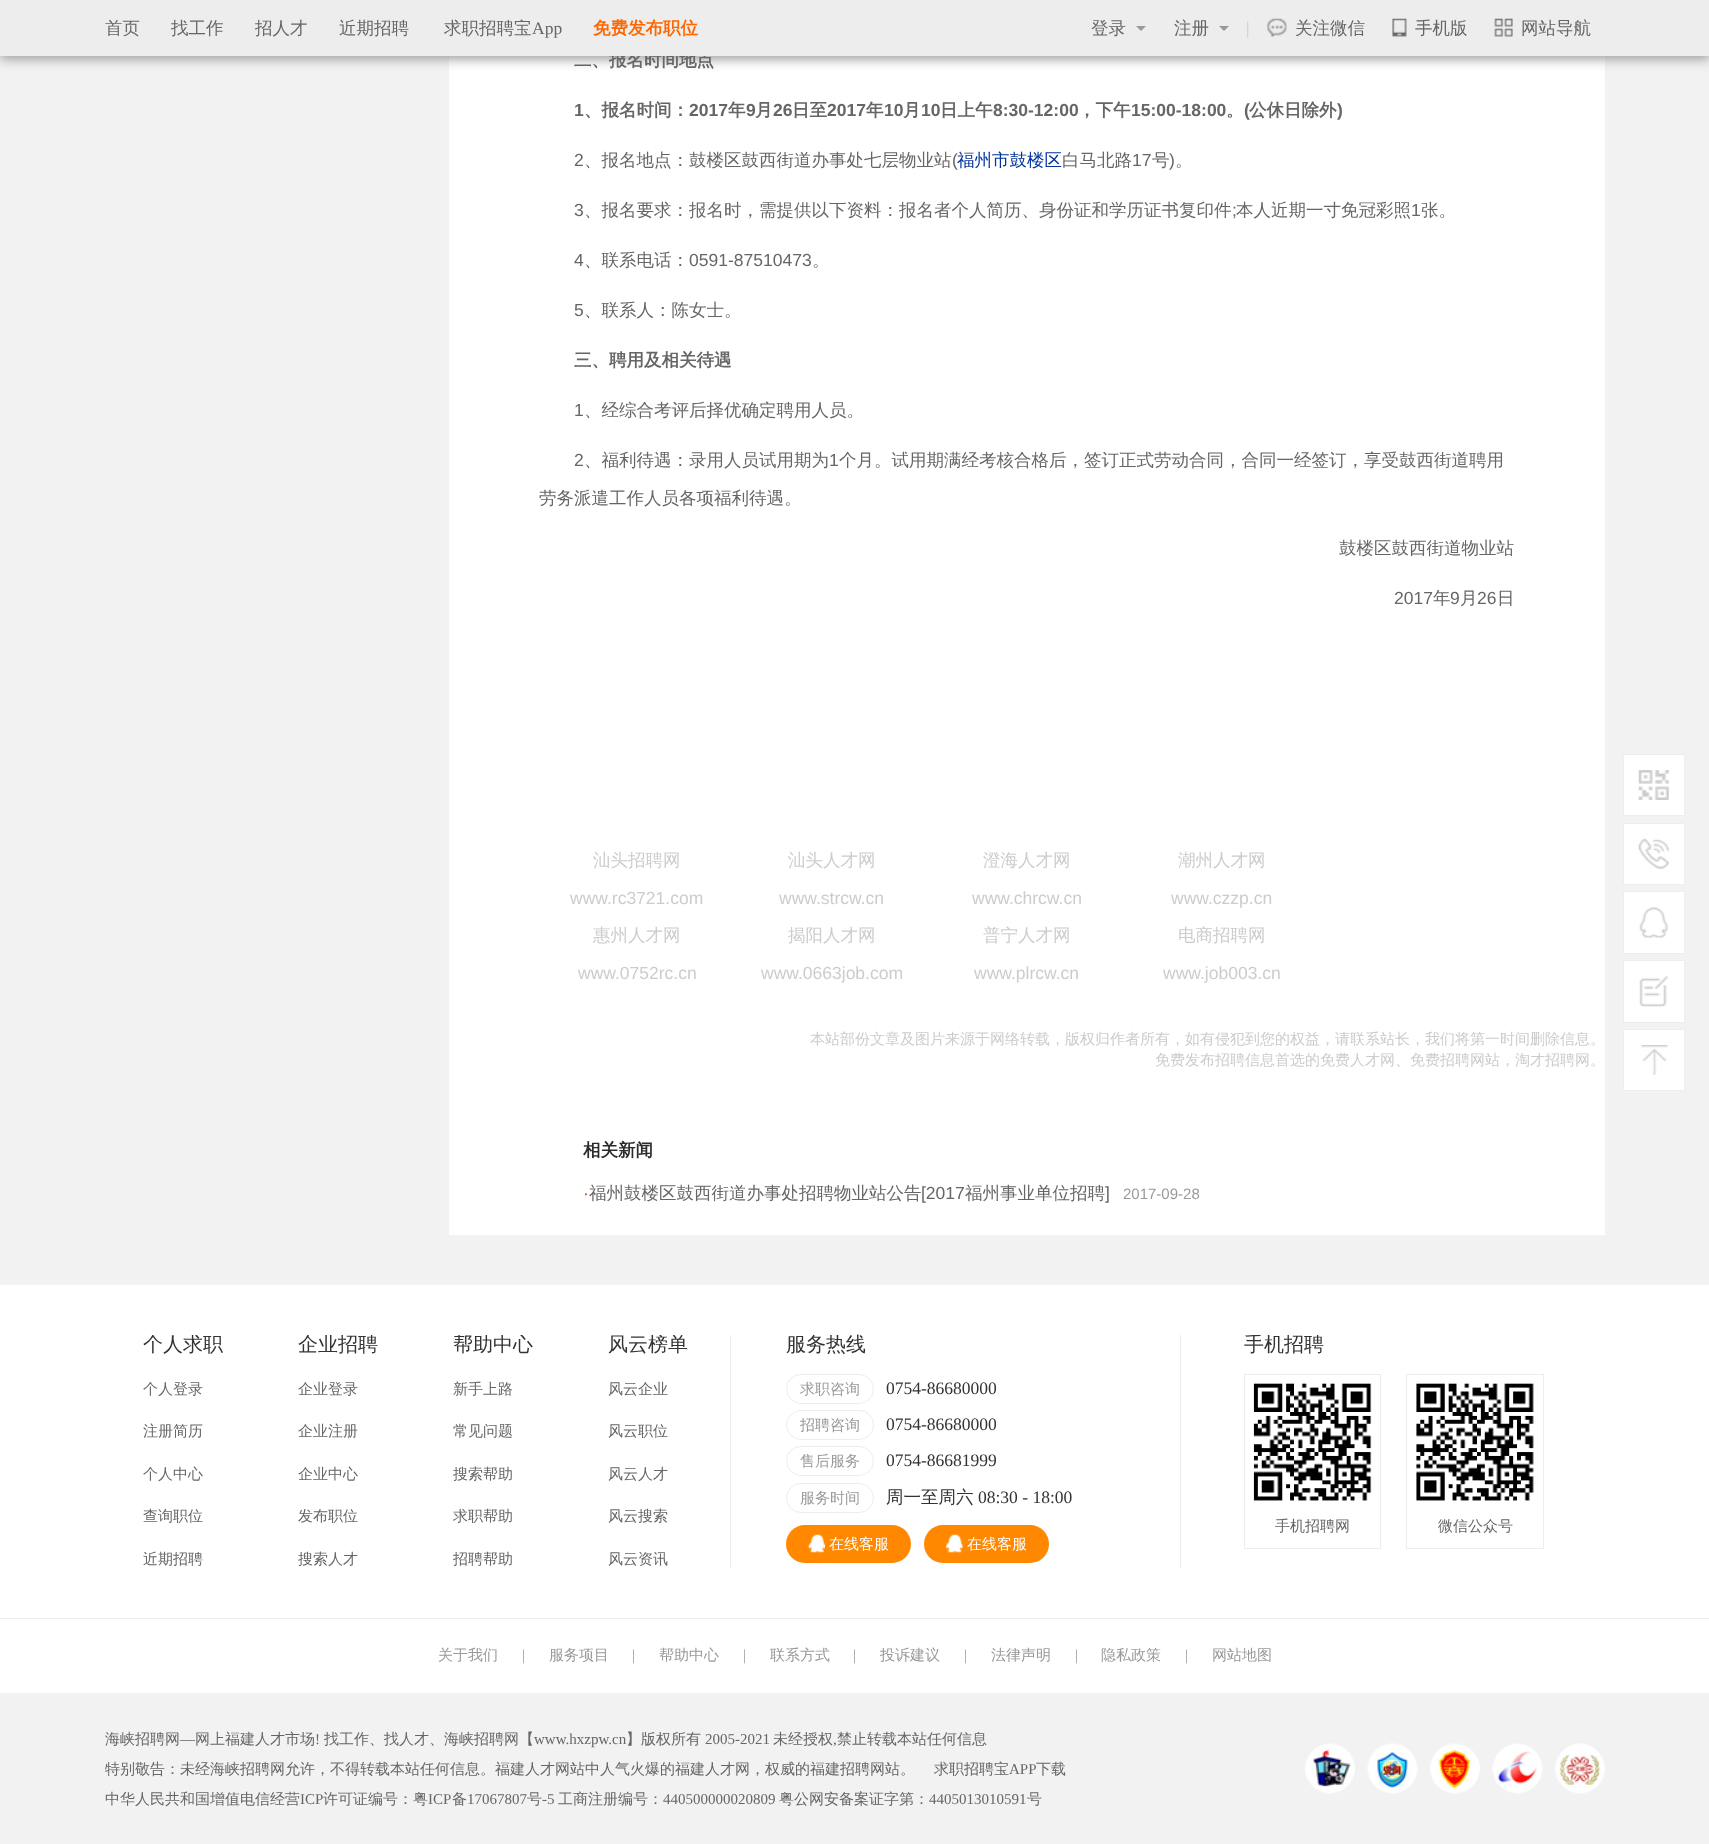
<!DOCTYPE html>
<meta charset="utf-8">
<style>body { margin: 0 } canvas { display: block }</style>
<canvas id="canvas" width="1709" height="1844"></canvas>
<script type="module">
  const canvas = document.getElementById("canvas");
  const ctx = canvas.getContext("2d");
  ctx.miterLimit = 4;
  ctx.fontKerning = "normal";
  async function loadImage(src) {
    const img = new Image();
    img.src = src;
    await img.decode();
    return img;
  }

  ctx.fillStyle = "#f2f2f2";
  ctx.fillRect(0, 0, 1709, 1844);
  ctx.fillStyle = "#ffffff";
  ctx.fillRect(449, 56, 1156, 1179);
  ctx.fillStyle = "#999999";
  ctx.filter = "blur(6px)";
  ctx.beginPath();
  ctx.rect(0, 3, 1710, 56);
  ctx.fill();
  ctx.filter = "none";
  ctx.font = "bold 17.5px WenQuanYi Zen Hei";
  ctx.fillStyle = "#666666";
  ctx.fillText("二、报名时间地点", 574, 66);
  ctx.fillStyle = "#ededed";
  ctx.fillRect(0, 0, 1709, 56);
  ctx.font = "500 17.5px WenQuanYi Zen Hei";
  ctx.fillStyle = "#666666";
  ctx.fillText("首页", 105, 34);
  ctx.fillText("找工作", 171, 34);
  ctx.fillText("招人才", 255, 34);
  ctx.fillText("近期招聘", 339, 34);
  ctx.fillText("求职招聘宝", 444, 34);
  ctx.font = "17.5px Liberation Serif";
  ctx.fillText("App", 532, 34);
  ctx.font = "bold 17.5px WenQuanYi Zen Hei";
  ctx.fillStyle = "#ff6600";
  ctx.fillText("免费发布职位", 593, 34);
  ctx.font = "500 17.5px WenQuanYi Zen Hei";
  ctx.fillStyle = "#666666";
  ctx.fillText("登录", 1091, 34);
  ctx.fillStyle = "#999999";
  ctx.beginPath();
  ctx.moveTo(1136, 26);
  ctx.lineTo(1146, 26);
  ctx.lineTo(1141, 31);
  ctx.closePath();
  ctx.fill();
  ctx.fillStyle = "#666666";
  ctx.fillText("注册", 1174, 34);
  ctx.fillStyle = "#999999";
  ctx.beginPath();
  ctx.moveTo(1219, 26);
  ctx.lineTo(1229, 26);
  ctx.lineTo(1224, 31);
  ctx.closePath();
  ctx.fill();
  ctx.font = "17.5px Liberation Serif";
  ctx.fillStyle = "#cccccc";
  ctx.fillText("|", 1246, 34);
  ctx.drawImage(await loadImage("img1.png"), 1267, 18, 20, 19);
  ctx.font = "500 17.5px WenQuanYi Zen Hei";
  ctx.fillStyle = "#666666";
  ctx.fillText("关注微信", 1295, 34);
  ctx.drawImage(await loadImage("img2.png"), 1392, 18, 15, 19);
  ctx.fillText("手机版", 1415, 34);
  ctx.drawImage(await loadImage("img3.png"), 1494, 18, 19, 19);
  ctx.fillText("网站导航", 1521, 34);
  ctx.font = "bold 17.5px Liberation Sans";
  ctx.fillText("1", 574, 116);
  ctx.font = "bold 17.5px WenQuanYi Zen Hei";
  ctx.fillText("、报名时间：", 584, 116);
  ctx.font = "bold 17.5px Liberation Sans";
  ctx.fillText("2017", 689, 116);
  ctx.font = "bold 17.5px WenQuanYi Zen Hei";
  ctx.fillText("年", 728, 116);
  ctx.font = "bold 17.5px Liberation Sans";
  ctx.fillText("9", 746, 116);
  ctx.font = "bold 17.5px WenQuanYi Zen Hei";
  ctx.fillText("月", 755, 116);
  ctx.font = "bold 17.5px Liberation Sans";
  ctx.fillText("26", 773, 116);
  ctx.font = "bold 17.5px WenQuanYi Zen Hei";
  ctx.fillText("日至", 792, 116);
  ctx.font = "bold 17.5px Liberation Sans";
  ctx.fillText("2017", 827, 116);
  ctx.font = "bold 17.5px WenQuanYi Zen Hei";
  ctx.fillText("年", 866, 116);
  ctx.font = "bold 17.5px Liberation Sans";
  ctx.fillText("10", 884, 116);
  ctx.font = "bold 17.5px WenQuanYi Zen Hei";
  ctx.fillText("月", 903, 116);
  ctx.font = "bold 17.5px Liberation Sans";
  ctx.fillText("10", 921, 116);
  ctx.font = "bold 17.5px WenQuanYi Zen Hei";
  ctx.fillText("日上午", 940, 116);
  ctx.font = "bold 17.5px Liberation Sans";
  ctx.fillText("8:30-12:00", 993, 116);
  ctx.font = "bold 17.5px WenQuanYi Zen Hei";
  ctx.fillText("，下午", 1078, 116);
  ctx.font = "bold 17.5px Liberation Sans";
  ctx.fillText("15:00-18:00", 1131, 116);
  ctx.font = "bold 17.5px WenQuanYi Zen Hei";
  ctx.fillText("。", 1226, 116);
  ctx.font = "bold 17.5px Liberation Sans";
  ctx.fillText("(", 1244, 116);
  ctx.font = "bold 17.5px WenQuanYi Zen Hei";
  ctx.fillText("公休日除外", 1249, 116);
  ctx.font = "bold 17.5px Liberation Sans";
  ctx.fillText(")", 1337, 116);
  ctx.font = "17.5px Liberation Sans";
  ctx.fillText("2", 574, 166);
  ctx.font = "500 17.5px WenQuanYi Zen Hei";
  ctx.fillText("、报名地点：鼓楼区鼓西街道办事处七层物业站", 584, 166);
  ctx.font = "17.5px Liberation Sans";
  ctx.fillText("(", 952, 166);
  ctx.font = "500 17.5px WenQuanYi Zen Hei";
  ctx.fillStyle = "#003399";
  ctx.fillText("福州市鼓楼区", 957, 166);
  ctx.fillStyle = "#666666";
  ctx.fillText("白马北路", 1062, 166);
  ctx.font = "17.5px Liberation Sans";
  ctx.fillText("17", 1132, 166);
  ctx.font = "500 17.5px WenQuanYi Zen Hei";
  ctx.fillText("号", 1152, 166);
  ctx.font = "17.5px Liberation Sans";
  ctx.fillText(")", 1169, 166);
  ctx.font = "500 17.5px WenQuanYi Zen Hei";
  ctx.fillText("。", 1175, 166);
  ctx.font = "17.5px Liberation Sans";
  ctx.fillText("3", 574, 216);
  ctx.font = "500 17.5px WenQuanYi Zen Hei";
  ctx.fillText("、报名要求：报名时，需提供以下资料：报名者个人简历、身份证和学历证书复印件", 584, 216);
  ctx.font = "17.5px Liberation Sans";
  ctx.fillText(";", 1232, 216);
  ctx.font = "500 17.5px WenQuanYi Zen Hei";
  ctx.fillText("本人近期一寸免冠彩照", 1236, 216);
  ctx.font = "17.5px Liberation Sans";
  ctx.fillText("1", 1411, 216);
  ctx.font = "500 17.5px WenQuanYi Zen Hei";
  ctx.fillText("张。", 1421, 216);
  ctx.font = "17.5px Liberation Sans";
  ctx.fillText("4", 574, 266);
  ctx.font = "500 17.5px WenQuanYi Zen Hei";
  ctx.fillText("、联系电话：", 584, 266);
  ctx.font = "17.5px Liberation Sans";
  ctx.fillText("0591-87510473", 689, 266);
  ctx.font = "500 17.5px WenQuanYi Zen Hei";
  ctx.fillText("。", 812, 266);
  ctx.font = "17.5px Liberation Sans";
  ctx.fillText("5", 574, 316);
  ctx.font = "500 17.5px WenQuanYi Zen Hei";
  ctx.fillText("、联系人：陈女士。", 584, 316);
  ctx.font = "bold 17.5px WenQuanYi Zen Hei";
  ctx.fillText("三、聘用及相关待遇", 574, 366);
  ctx.font = "17.5px Liberation Sans";
  ctx.fillText("1", 574, 416);
  ctx.font = "500 17.5px WenQuanYi Zen Hei";
  ctx.fillText("、经综合考评后择优确定聘用人员。", 584, 416);
  ctx.font = "17.5px Liberation Sans";
  ctx.fillText("2", 574, 466);
  ctx.font = "500 17.5px WenQuanYi Zen Hei";
  ctx.fillText("、福利待遇：录用人员试用期为", 584, 466);
  ctx.font = "17.5px Liberation Sans";
  ctx.fillText("1", 829, 466);
  ctx.font = "500 17.5px WenQuanYi Zen Hei";
  ctx.fillText("个月。试用期满经考核合格后，签订正式劳动合同，合同一经签订，享受鼓西街道聘用", 839, 466);
  ctx.fillText("劳务派遣工作人员各项福利待遇。", 539, 504);
  ctx.fillText("鼓楼区鼓西街道物业站", 1339, 554);
  ctx.font = "17.5px Liberation Sans";
  ctx.fillText("2017", 1394, 604);
  ctx.font = "500 17.5px WenQuanYi Zen Hei";
  ctx.fillText("年", 1433, 604);
  ctx.font = "17.5px Liberation Sans";
  ctx.fillText("9", 1450, 604);
  ctx.font = "500 17.5px WenQuanYi Zen Hei";
  ctx.fillText("月", 1460, 604);
  ctx.font = "17.5px Liberation Sans";
  ctx.fillText("26", 1477, 604);
  ctx.font = "500 17.5px WenQuanYi Zen Hei";
  ctx.fillText("日", 1497, 604);
  ctx.fillStyle = "#cccccc";
  ctx.fillText("汕头招聘网", 593, 866);
  ctx.font = "17.5px Liberation Sans";
  ctx.fillText("www.rc3721.com", 570, 904);
  ctx.font = "500 17.5px WenQuanYi Zen Hei";
  ctx.fillText("汕头人才网", 788, 866);
  ctx.font = "17.5px Liberation Sans";
  ctx.fillText("www.strcw.cn", 779, 904);
  ctx.font = "500 17.5px WenQuanYi Zen Hei";
  ctx.fillText("澄海人才网", 983, 866);
  ctx.font = "17.5px Liberation Sans";
  ctx.fillText("www.chrcw.cn", 972, 904);
  ctx.font = "500 17.5px WenQuanYi Zen Hei";
  ctx.fillText("潮州人才网", 1178, 866);
  ctx.font = "17.5px Liberation Sans";
  ctx.fillText("www.czzp.cn", 1171, 904);
  ctx.font = "500 17.5px WenQuanYi Zen Hei";
  ctx.fillText("惠州人才网", 593, 941);
  ctx.font = "17.5px Liberation Sans";
  ctx.fillText("www.0752rc.cn", 578, 979);
  ctx.font = "500 17.5px WenQuanYi Zen Hei";
  ctx.fillText("揭阳人才网", 788, 941);
  ctx.font = "17.5px Liberation Sans";
  ctx.fillText("www.0663job.com", 761, 979);
  ctx.font = "500 17.5px WenQuanYi Zen Hei";
  ctx.fillText("普宁人才网", 983, 941);
  ctx.font = "17.5px Liberation Sans";
  ctx.fillText("www.plrcw.cn", 974, 979);
  ctx.font = "500 17.5px WenQuanYi Zen Hei";
  ctx.fillText("电商招聘网", 1178, 941);
  ctx.font = "17.5px Liberation Sans";
  ctx.fillText("www.job003.cn", 1163, 979);
  ctx.font = "500 15px WenQuanYi Zen Hei";
  ctx.fillText("本站部份文章及图片来源于网络转载，版权归作者所有，如有侵犯到您的权益，请联系站长，我们将第一时间删除信息。", 810, 1044);
  ctx.fillText("免费发布招聘信息首选的免费人才网、免费招聘网站，淘才招聘网。", 1155, 1065);
  ctx.font = "bold 17.5px WenQuanYi Zen Hei";
  ctx.fillStyle = "#2b2b2b";
  ctx.fillText("相关新闻", 583, 1156);
  ctx.font = "17.5px Liberation Sans";
  ctx.fillStyle = "#ed3e0f";
  ctx.fillText("·", 583, 1199);
  ctx.font = "500 17.5px WenQuanYi Zen Hei";
  ctx.fillStyle = "#666666";
  ctx.fillText("福州鼓楼区鼓西街道办事处招聘物业站公告", 589, 1199);
  ctx.font = "17.5px Liberation Sans";
  ctx.fillText("[2017", 921, 1199);
  ctx.font = "500 17.5px WenQuanYi Zen Hei";
  ctx.fillText("福州事业单位招聘", 965, 1199);
  ctx.font = "17.5px Liberation Sans";
  ctx.fillText("]", 1105, 1199);
  ctx.font = "15px Liberation Sans";
  ctx.fillStyle = "#999999";
  ctx.fillText("2017-09-28", 1123, 1199);
  ctx.fillStyle = "#ffffff";
  ctx.beginPath();
  ctx.rect(1623.5, 754.5, 61, 61);
  ctx.fill();
  ctx.strokeStyle = "#ededed";
  ctx.stroke();
  ctx.drawImage(await loadImage("img4.png"), 1638, 770, 31, 30);
  ctx.beginPath();
  ctx.rect(1623.5, 823.5, 61, 61);
  ctx.fill();
  ctx.stroke();
  ctx.drawImage(await loadImage("img5.png"), 1638, 838, 31, 31);
  ctx.beginPath();
  ctx.rect(1623.5, 891.5, 61, 62);
  ctx.fill();
  ctx.stroke();
  ctx.drawImage(await loadImage("img6.png"), 1639, 907, 29, 31);
  ctx.beginPath();
  ctx.rect(1623.5, 960.5, 61, 62);
  ctx.fill();
  ctx.stroke();
  ctx.drawImage(await loadImage("img7.png"), 1639, 976, 29, 31);
  ctx.beginPath();
  ctx.rect(1623.5, 1029.5, 61, 61);
  ctx.fill();
  ctx.stroke();
  ctx.drawImage(await loadImage("img8.png"), 1640, 1045, 28, 30);
  ctx.fillRect(0, 1285, 1709, 408);
  ctx.fillStyle = "#ededed";
  ctx.fillRect(0, 1618, 1709, 1);
  ctx.fillRect(730, 1335, 1, 233);
  ctx.save();
  ctx.beginPath();
  ctx.rect(105, 1335, 1500, 233);
  ctx.clip();
  ctx.font = "500 20px WenQuanYi Zen Hei";
  ctx.fillStyle = "#333333";
  ctx.fillText("个人求职", 143, 1351);
  ctx.restore();
  ctx.font = "500 15px WenQuanYi Zen Hei";
  ctx.fillStyle = "#666666";
  ctx.fillText("个人登录", 143, 1394);
  ctx.fillText("注册简历", 143, 1436);
  ctx.fillText("个人中心", 143, 1479);
  ctx.fillText("查询职位", 143, 1521);
  ctx.fillText("近期招聘", 143, 1564);
  ctx.save();
  ctx.beginPath();
  ctx.rect(105, 1335, 1500, 233);
  ctx.clip();
  ctx.font = "500 20px WenQuanYi Zen Hei";
  ctx.fillStyle = "#333333";
  ctx.fillText("企业招聘", 298, 1351);
  ctx.restore();
  ctx.fillText("企业登录", 298, 1394);
  ctx.fillText("企业注册", 298, 1436);
  ctx.fillText("企业中心", 298, 1479);
  ctx.fillText("发布职位", 298, 1521);
  ctx.fillText("搜索人才", 298, 1564);
  ctx.save();
  ctx.beginPath();
  ctx.rect(105, 1335, 1500, 233);
  ctx.clip();
  ctx.font = "500 20px WenQuanYi Zen Hei";
  ctx.fillStyle = "#333333";
  ctx.fillText("帮助中心", 453, 1351);
  ctx.restore();
  ctx.fillText("新手上路", 453, 1394);
  ctx.fillText("常见问题", 453, 1436);
  ctx.fillText("搜索帮助", 453, 1479);
  ctx.fillText("求职帮助", 453, 1521);
  ctx.fillText("招聘帮助", 453, 1564);
  ctx.save();
  ctx.beginPath();
  ctx.rect(105, 1335, 1500, 233);
  ctx.clip();
  ctx.font = "500 20px WenQuanYi Zen Hei";
  ctx.fillStyle = "#333333";
  ctx.fillText("风云榜单", 608, 1351);
  ctx.restore();
  ctx.fillText("风云企业", 608, 1394);
  ctx.fillText("风云职位", 608, 1436);
  ctx.fillText("风云人才", 608, 1479);
  ctx.fillText("风云搜索", 608, 1521);
  ctx.fillText("风云资讯", 608, 1564);
  ctx.fillStyle = "#ededed";
  ctx.fillRect(1180, 1335, 1, 233);
  ctx.font = "500 20px WenQuanYi Zen Hei";
  ctx.fillStyle = "#333333";
  ctx.fillText("服务热线", 786, 1351);
  ctx.beginPath();
  ctx.roundRect(786.5, 1374.5, 87, 29, 14.5);
  ctx.stroke();
  ctx.font = "500 15px WenQuanYi Zen Hei";
  ctx.fillStyle = "#999999";
  ctx.fillText("求职咨询", 800, 1394);
  ctx.font = "17.5px Liberation Serif";
  ctx.fillStyle = "#333333";
  ctx.fillText("0754-86680000", 886, 1394);
  ctx.beginPath();
  ctx.roundRect(786.5, 1410.5, 87, 29, 14.5);
  ctx.stroke();
  ctx.font = "500 15px WenQuanYi Zen Hei";
  ctx.fillStyle = "#999999";
  ctx.fillText("招聘咨询", 800, 1430);
  ctx.font = "17.5px Liberation Serif";
  ctx.fillStyle = "#333333";
  ctx.fillText("0754-86680000", 886, 1430);
  ctx.beginPath();
  ctx.roundRect(786.5, 1446.5, 87, 29, 14.5);
  ctx.stroke();
  ctx.font = "500 15px WenQuanYi Zen Hei";
  ctx.fillStyle = "#999999";
  ctx.fillText("售后服务", 800, 1466);
  ctx.font = "17.5px Liberation Serif";
  ctx.fillStyle = "#333333";
  ctx.fillText("0754-86681999", 886, 1466);
  ctx.beginPath();
  ctx.roundRect(786.5, 1483.5, 87, 29, 14.5);
  ctx.stroke();
  ctx.font = "500 15px WenQuanYi Zen Hei";
  ctx.fillStyle = "#999999";
  ctx.fillText("服务时间", 800, 1503);
  ctx.font = "500 17.5px WenQuanYi Zen Hei";
  ctx.fillStyle = "#333333";
  ctx.fillText("周一至周六", 886, 1503);
  ctx.font = "17.5px Liberation Serif";
  ctx.fillText("08:30 - 18:00", 978, 1503);
  ctx.fillStyle = "#ff8800";
  ctx.beginPath();
  ctx.roundRect(786, 1525, 125, 38, 19);
  ctx.fill();
  ctx.drawImage(await loadImage("img9.png"), 808, 1534, 17, 19);
  ctx.font = "500 15px WenQuanYi Zen Hei";
  ctx.fillStyle = "#ffffff";
  ctx.fillText("在线客服", 829, 1549);
  ctx.fillStyle = "#ff8800";
  ctx.beginPath();
  ctx.roundRect(924, 1525, 125, 38, 19);
  ctx.fill();
  ctx.drawImage(await loadImage("img10.png"), 946, 1534, 17, 19);
  ctx.fillStyle = "#ffffff";
  ctx.fillText("在线客服", 967, 1549);
  ctx.save();
  ctx.beginPath();
  ctx.rect(105, 1335, 1500, 233);
  ctx.clip();
  ctx.font = "500 20px WenQuanYi Zen Hei";
  ctx.fillStyle = "#333333";
  ctx.fillText("手机招聘", 1244, 1351);
  ctx.restore();
  ctx.strokeRect(1244.5, 1374.5, 136, 174);
  ctx.drawImage(await loadImage("img11.png"), 1253, 1383, 119, 118);
  ctx.fillStyle = "#666666";
  ctx.fillText("手机招聘网", 1275, 1531);
  ctx.strokeRect(1406.5, 1374.5, 137, 174);
  ctx.drawImage(await loadImage("img12.png"), 1416, 1383, 118, 118);
  ctx.fillText("微信公众号", 1438, 1531);
  ctx.fillStyle = "#999999";
  ctx.fillText("关于我们", 438, 1660);
  ctx.font = "15px Liberation Serif";
  ctx.fillText("|", 522, 1660);
  ctx.font = "500 15px WenQuanYi Zen Hei";
  ctx.fillText("服务项目", 549, 1660);
  ctx.font = "15px Liberation Serif";
  ctx.fillText("|", 632, 1660);
  ctx.font = "500 15px WenQuanYi Zen Hei";
  ctx.fillText("帮助中心", 659, 1660);
  ctx.font = "15px Liberation Serif";
  ctx.fillText("|", 743, 1660);
  ctx.font = "500 15px WenQuanYi Zen Hei";
  ctx.fillText("联系方式", 770, 1660);
  ctx.font = "15px Liberation Serif";
  ctx.fillText("|", 853, 1660);
  ctx.font = "500 15px WenQuanYi Zen Hei";
  ctx.fillText("投诉建议", 880, 1660);
  ctx.font = "15px Liberation Serif";
  ctx.fillText("|", 964, 1660);
  ctx.font = "500 15px WenQuanYi Zen Hei";
  ctx.fillText("法律声明", 991, 1660);
  ctx.font = "15px Liberation Serif";
  ctx.fillText("|", 1075, 1660);
  ctx.font = "500 15px WenQuanYi Zen Hei";
  ctx.fillText("隐私政策", 1101, 1660);
  ctx.font = "15px Liberation Serif";
  ctx.fillText("|", 1185, 1660);
  ctx.font = "500 15px WenQuanYi Zen Hei";
  ctx.fillText("网站地图", 1212, 1660);
  ctx.fillStyle = "#666666";
  ctx.fillText("海峡招聘网", 105, 1744);
  ctx.font = "15px Liberation Serif";
  ctx.fillText("—", 180, 1744);
  ctx.font = "500 15px WenQuanYi Zen Hei";
  ctx.fillText("网上福建人才市场", 195, 1744);
  ctx.font = "15px Liberation Serif";
  ctx.fillText("!", 315, 1744);
  ctx.font = "500 15px WenQuanYi Zen Hei";
  ctx.fillText("找工作、找人才、海峡招聘网【", 324, 1744);
  ctx.font = "15px Liberation Serif";
  ctx.fillText("www.hxzpw.cn", 534, 1744);
  ctx.font = "500 15px WenQuanYi Zen Hei";
  ctx.fillText("】版权所有", 626, 1744);
  ctx.font = "15px Liberation Serif";
  ctx.fillText("2005-2021", 705, 1744);
  ctx.font = "500 15px WenQuanYi Zen Hei";
  ctx.fillText("未经授权", 773, 1744);
  ctx.fillText("禁止转载本站任何信息", 837, 1744);
  ctx.font = "15px Liberation Serif";
  ctx.fillText(",", 833, 1744);
  ctx.font = "500 15px WenQuanYi Zen Hei";
  ctx.fillText("特别敬告：未经海峡招聘网允许，不得转载本站任何信息。福建人才网站中人气火爆的福建人才网，权威的福建招聘网站。", 105, 1774);
  ctx.fillText("求职招聘宝", 934, 1774);
  ctx.font = "15px Liberation Serif";
  ctx.fillText("APP", 1009, 1774);
  ctx.font = "500 15px WenQuanYi Zen Hei";
  ctx.fillText("下载", 1036, 1774);
  ctx.fillText("中华人民共和国增值电信经营", 105, 1804);
  ctx.font = "15px Liberation Serif";
  ctx.fillText("ICP", 300, 1804);
  ctx.font = "500 15px WenQuanYi Zen Hei";
  ctx.fillText("许可证编号：粤", 323, 1804);
  ctx.font = "15px Liberation Serif";
  ctx.fillText("ICP", 428, 1804);
  ctx.font = "500 15px WenQuanYi Zen Hei";
  ctx.fillText("备", 452, 1804);
  ctx.font = "15px Liberation Serif";
  ctx.fillText("17067807", 467, 1804);
  ctx.font = "500 15px WenQuanYi Zen Hei";
  ctx.fillText("号", 527, 1804);
  ctx.font = "15px Liberation Serif";
  ctx.fillText("-5", 542, 1804);
  ctx.font = "500 15px WenQuanYi Zen Hei";
  ctx.fillText("工商注册编号：", 558, 1804);
  ctx.font = "15px Liberation Serif";
  ctx.fillText("440500000020809", 663, 1804);
  ctx.font = "500 15px WenQuanYi Zen Hei";
  ctx.fillText("粤公网安备案证字第：", 779, 1804);
  ctx.font = "15px Liberation Serif";
  ctx.fillText("4405013010591", 929, 1804);
  ctx.font = "500 15px WenQuanYi Zen Hei";
  ctx.fillText("号", 1027, 1804);
  ctx.drawImage(await loadImage("img13.png"), 1305, 1743, 50, 51);
  ctx.drawImage(await loadImage("img14.png"), 1367, 1743, 51, 51);
  ctx.drawImage(await loadImage("img15.png"), 1430, 1743, 50, 51);
  ctx.drawImage(await loadImage("img16.png"), 1492, 1743, 51, 51);
  ctx.drawImage(await loadImage("img17.png"), 1555, 1743, 50, 51);
</script>
